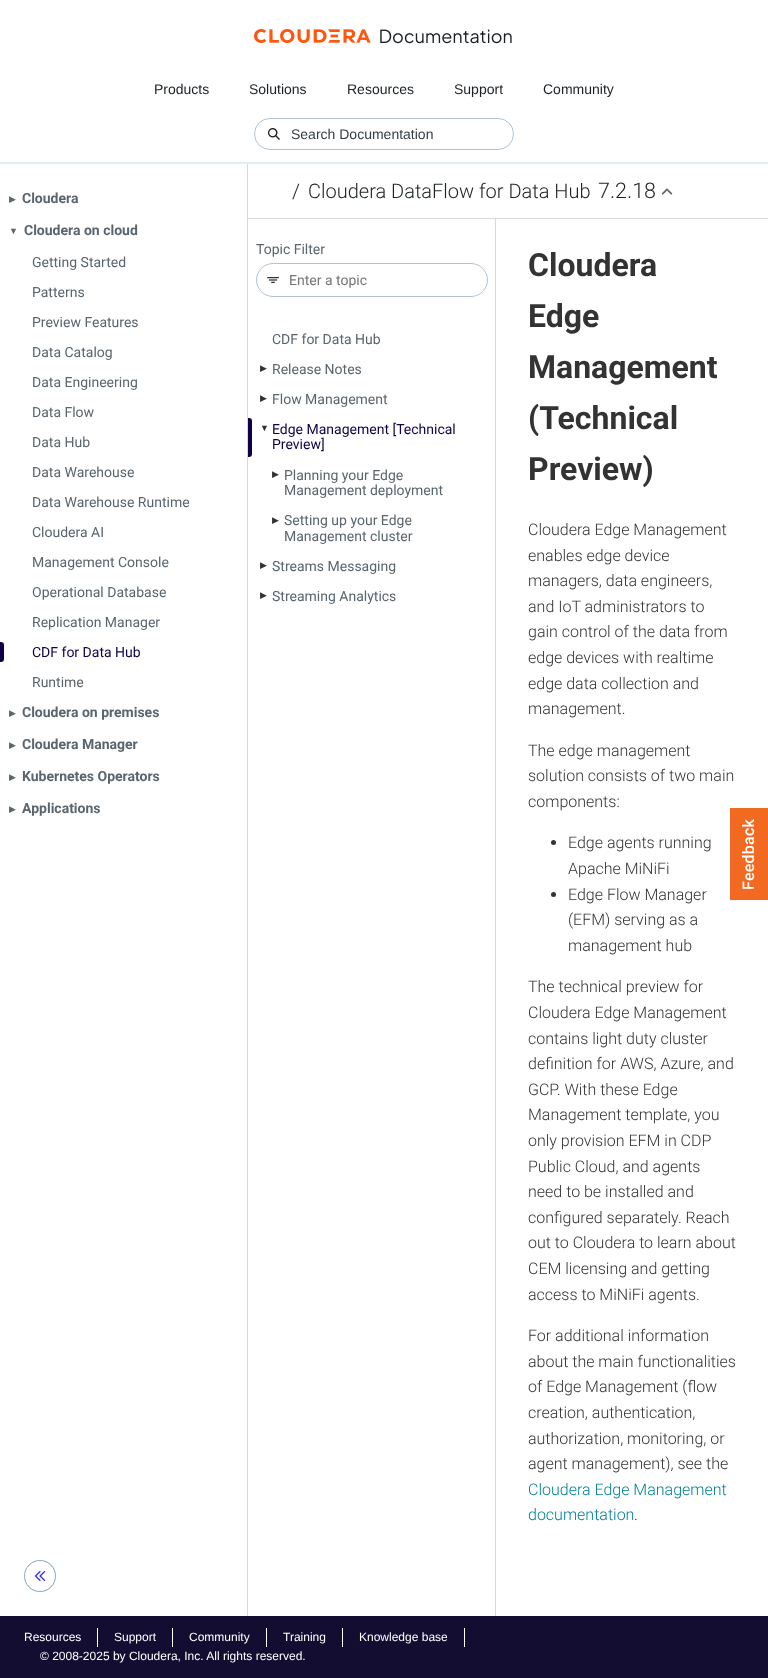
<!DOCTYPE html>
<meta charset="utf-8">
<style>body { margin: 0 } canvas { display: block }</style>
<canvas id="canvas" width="768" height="1678"></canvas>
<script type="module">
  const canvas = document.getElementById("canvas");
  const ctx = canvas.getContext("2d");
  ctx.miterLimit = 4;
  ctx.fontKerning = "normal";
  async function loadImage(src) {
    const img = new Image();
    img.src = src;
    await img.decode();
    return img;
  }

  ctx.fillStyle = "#ffffff";
  ctx.fillRect(0, 0, 768, 1678);
  ctx.fillStyle = "#e5ecf1";
  ctx.fillRect(0, 162, 768, 2);
  ctx.drawImage(await loadImage("img1.png"), 254, 29, 258, 15);
  ctx.font = "14px Liberation Sans";
  ctx.fillStyle = "#1a2024";
  ctx.fillText("Products", 154, 94);
  ctx.fillText("Solutions", 249, 94);
  ctx.fillText("Resources", 347, 94);
  ctx.fillText("Support", 454, 94);
  ctx.fillText("Community", 543, 94);
  ctx.beginPath();
  ctx.roundRect(254.5, 118.5, 259, 31, 15.5);
  ctx.strokeStyle = "#afc4d2";
  ctx.stroke();
  ctx.drawImage(await loadImage("img2.png"), 268, 128, 12, 12);
  ctx.fillStyle = "#333d43";
  ctx.fillText("Search Documentation", 291, 139);
  ctx.fillStyle = "#d6d8db";
  ctx.fillRect(247, 164, 1, 1452);
  ctx.font = "9px DejaVu Sans";
  ctx.fillStyle = "#5a656d";
  ctx.fillText("▶︎", 9, 202);
  ctx.font = "bold 14px Roboto";
  ctx.fillText("Cloudera", 22, 203);
  ctx.font = "9px Liberation Sans";
  ctx.fillText("▼", 9, 234);
  ctx.font = "bold 14px Roboto";
  ctx.fillText("Cloudera on cloud", 24, 235);
  ctx.font = "14px Roboto";
  ctx.fillText("Getting Started", 32, 267);
  ctx.fillText("Patterns", 32, 297);
  ctx.fillText("Preview Features", 32, 327);
  ctx.fillText("Data Catalog", 32, 357);
  ctx.fillText("Data Engineering", 32, 387);
  ctx.fillText("Data Flow", 32, 417);
  ctx.fillText("Data Hub", 32, 447);
  ctx.fillText("Data Warehouse", 32, 477);
  ctx.fillText("Data Warehouse Runtime", 32, 507);
  ctx.fillText("Cloudera AI", 32, 537);
  ctx.fillText("Management Console", 32, 567);
  ctx.fillText("Operational Database", 32, 597);
  ctx.fillText("Replication Manager", 32, 627);
  ctx.fillStyle = "#120046";
  ctx.beginPath();
  ctx.roundRect(0, 642, 4, 20, [0, 3, 3, 0]);
  ctx.fill();
  ctx.fillText("CDF for Data Hub", 32, 657);
  ctx.fillStyle = "#5a656d";
  ctx.fillText("Runtime", 32, 687);
  ctx.font = "9px DejaVu Sans";
  ctx.fillText("▶︎", 9, 716);
  ctx.font = "bold 14px Roboto";
  ctx.fillText("Cloudera on premises", 22, 717);
  ctx.font = "9px DejaVu Sans";
  ctx.fillText("▶︎", 9, 748);
  ctx.font = "bold 14px Roboto";
  ctx.fillText("Cloudera Manager", 22, 749);
  ctx.font = "9px DejaVu Sans";
  ctx.fillText("▶︎", 9, 780);
  ctx.font = "bold 14px Roboto";
  ctx.fillText("Kubernetes Operators", 22, 781);
  ctx.font = "9px DejaVu Sans";
  ctx.fillText("▶︎", 9, 812);
  ctx.font = "bold 14px Roboto";
  ctx.fillText("Applications", 22, 813);
  ctx.drawImage(await loadImage("img3.png"), 24, 1560, 32, 32);
  ctx.fillStyle = "#d6d8db";
  ctx.fillRect(496, 218, 272, 1);
  ctx.font = "300 20px Roboto";
  ctx.fillStyle = "#1a2024";
  ctx.fillText("/", 292, 198);
  ctx.fillText("Cloudera DataFlow for Data Hub", 308, 198);
  ctx.font = "300 21.5px Roboto";
  ctx.fillText("7.2.18", 598, 198);
  ctx.drawImage(await loadImage("img4.png"), 661, 188, 12, 7);
  ctx.save();
  ctx.beginPath();
  ctx.rect(248, 218, 248, 1398);
  ctx.clip();
  ctx.fillStyle = "#d6d8db";
  ctx.beginPath();
  ctx.moveTo(149, 119);
  ctx.lineTo(595, 119);
  ctx.lineTo(595, 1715);
  ctx.lineTo(149, 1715);
  ctx.closePath();
  ctx.moveTo(247, 219);
  ctx.lineTo(495, 219);
  ctx.lineTo(495, 1617);
  ctx.lineTo(247, 1617);
  ctx.closePath();
  ctx.fill("evenodd");
  ctx.restore();
  ctx.font = "14px Roboto";
  ctx.fillStyle = "#5a656d";
  ctx.fillText("Topic Filter", 256, 254);
  ctx.beginPath();
  ctx.roundRect(256.5, 263.5, 231, 33, 16.5);
  ctx.stroke();
  ctx.drawImage(await loadImage("img5.png"), 267, 277, 12, 6);
  ctx.fillStyle = "#757575";
  ctx.fillText("Enter a topic", 289, 285);
  ctx.fillStyle = "#5a656d";
  ctx.fillText("CDF for Data Hub", 272, 344);
  ctx.font = "9px DejaVu Sans";
  ctx.fillStyle = "#333333";
  ctx.fillText("▶︎", 260, 371);
  ctx.font = "14px Roboto";
  ctx.fillStyle = "#5a656d";
  ctx.fillText("Release Notes", 272, 374);
  ctx.font = "9px DejaVu Sans";
  ctx.fillStyle = "#333333";
  ctx.fillText("▶︎", 260, 401);
  ctx.font = "14px Roboto";
  ctx.fillStyle = "#5a656d";
  ctx.fillText("Flow Management", 272, 404);
  ctx.fillStyle = "#120046";
  ctx.beginPath();
  ctx.roundRect(248, 418, 4, 39, [0, 3, 3, 0]);
  ctx.fill();
  ctx.font = "9px Liberation Sans";
  ctx.fillStyle = "#333333";
  ctx.fillText("▼", 260, 431);
  ctx.font = "14px Roboto";
  ctx.fillStyle = "#120046";
  ctx.fillText("Edge Management [Technical", 272, 434);
  ctx.fillText("Preview]", 272, 449);
  ctx.font = "9px DejaVu Sans";
  ctx.fillStyle = "#333333";
  ctx.fillText("▶︎", 272, 477);
  ctx.font = "14px Roboto";
  ctx.fillStyle = "#5a656d";
  ctx.fillText("Planning your Edge", 284, 480);
  ctx.fillText("Management deployment", 284, 495);
  ctx.font = "9px DejaVu Sans";
  ctx.fillStyle = "#333333";
  ctx.fillText("▶︎", 272, 523);
  ctx.font = "14px Roboto";
  ctx.fillStyle = "#5a656d";
  ctx.fillText("Setting up your Edge", 284, 525);
  ctx.fillText("Management cluster", 284, 541);
  ctx.font = "9px DejaVu Sans";
  ctx.fillStyle = "#333333";
  ctx.fillText("▶︎", 260, 568);
  ctx.font = "14px Roboto";
  ctx.fillStyle = "#5a656d";
  ctx.fillText("Streams Messaging", 272, 571);
  ctx.font = "9px DejaVu Sans";
  ctx.fillStyle = "#333333";
  ctx.fillText("▶︎", 260, 598);
  ctx.font = "14px Roboto";
  ctx.fillStyle = "#5a656d";
  ctx.fillText("Streaming Analytics", 272, 601);
  ctx.font = "bold 32px Roboto";
  ctx.fillStyle = "#333333";
  ctx.fillText("Cloudera", 528, 276);
  ctx.fillText("Edge", 528, 327);
  ctx.fillText("Management", 528, 378);
  ctx.fillText("(Technical", 528, 429);
  ctx.fillText("Preview)", 528, 480);
  ctx.font = "300 16px Roboto";
  ctx.fillText("Cloudera Edge Management", 528, 535);
  ctx.fillText("enables edge device", 528, 561);
  ctx.fillText("managers, data engineers,", 528, 586);
  ctx.fillText("and IoT administrators to", 528, 612);
  ctx.fillText("gain control of the data from", 528, 637);
  ctx.fillText("edge devices with realtime", 528, 663);
  ctx.fillText("edge data collection and", 528, 689);
  ctx.fillText("management.", 528, 714);
  ctx.fillText("The edge management", 528, 756);
  ctx.fillText("solution consists of two main", 528, 781);
  ctx.fillText("components:", 528, 807);
  ctx.beginPath();
  ctx.arc(553.5, 842.5, 2.5, 0, Math.PI * 2);
  ctx.fill();
  ctx.fillText("Edge agents running", 568, 848);
  ctx.fillText("Apache MiNiFi", 568, 874);
  ctx.beginPath();
  ctx.arc(553.5, 894.5, 2.5, 0, Math.PI * 2);
  ctx.fill();
  ctx.fillText("Edge Flow Manager", 568, 900);
  ctx.fillText("(EFM) serving as a", 568, 925);
  ctx.fillText("management hub", 568, 951);
  ctx.fillText("The technical preview for", 528, 992);
  ctx.fillText("Cloudera Edge Management", 528, 1018);
  ctx.fillText("contains light duty cluster", 528, 1044);
  ctx.fillText("definition for AWS, Azure, and", 528, 1069);
  ctx.fillText("GCP. With these Edge", 528, 1095);
  ctx.fillText("Management template, you", 528, 1120);
  ctx.fillText("only provision EFM in CDP", 528, 1146);
  ctx.fillText("Public Cloud, and agents", 528, 1172);
  ctx.fillText("need to be installed and", 528, 1197);
  ctx.fillText("configured separately. Reach", 528, 1223);
  ctx.fillText("out to Cloudera to learn about", 528, 1248);
  ctx.fillText("CEM licensing and getting", 528, 1274);
  ctx.fillText("access to MiNiFi agents.", 528, 1300);
  ctx.fillText("For additional information", 528, 1341);
  ctx.fillText("about the main functionalities", 528, 1367);
  ctx.fillText("of Edge Management (flow", 528, 1392);
  ctx.fillText("creation, authentication,", 528, 1418);
  ctx.fillText("authorization, monitoring, or", 528, 1444);
  ctx.fillText("agent management), see the", 528, 1469);
  ctx.fillStyle = "#008295";
  ctx.fillText("Cloudera Edge Management", 528, 1495);
  ctx.fillText("documentation", 528, 1520);
  ctx.fillStyle = "#333333";
  ctx.fillText(".", 634, 1520);
  ctx.fillStyle = "#f26922";
  ctx.fillRect(730, 808, 38, 92);
  ctx.letterSpacing = "0.25px";
  ctx.font = "500 16px Roboto";
  ctx.fillStyle = "#ffffff";
  ctx.save();
  ctx.translate(754, 890);
  ctx.rotate(-90 * Math.PI / 180);
  ctx.fillText("Feedback", 0, 0);
  ctx.restore();
  ctx.fillStyle = "#130d32";
  ctx.fillRect(0, 1616, 768, 62);
  ctx.fillStyle = "#ffffff";
  ctx.fillRect(97, 1628, 1, 19);
  ctx.letterSpacing = "0px";
  ctx.font = "12px Liberation Sans";
  ctx.fillText("Resources", 24, 1641);
  ctx.fillRect(172, 1628, 1, 19);
  ctx.fillText("Support", 114, 1641);
  ctx.fillRect(266, 1628, 1, 19);
  ctx.fillText("Community", 189, 1641);
  ctx.fillRect(342, 1628, 1, 19);
  ctx.fillText("Training", 283, 1641);
  ctx.fillRect(464, 1628, 1, 19);
  ctx.fillText("Knowledge base", 359, 1641);
  ctx.fillText("© 2008-2025 by Cloudera, Inc. All rights reserved.", 40, 1660);
</script>
